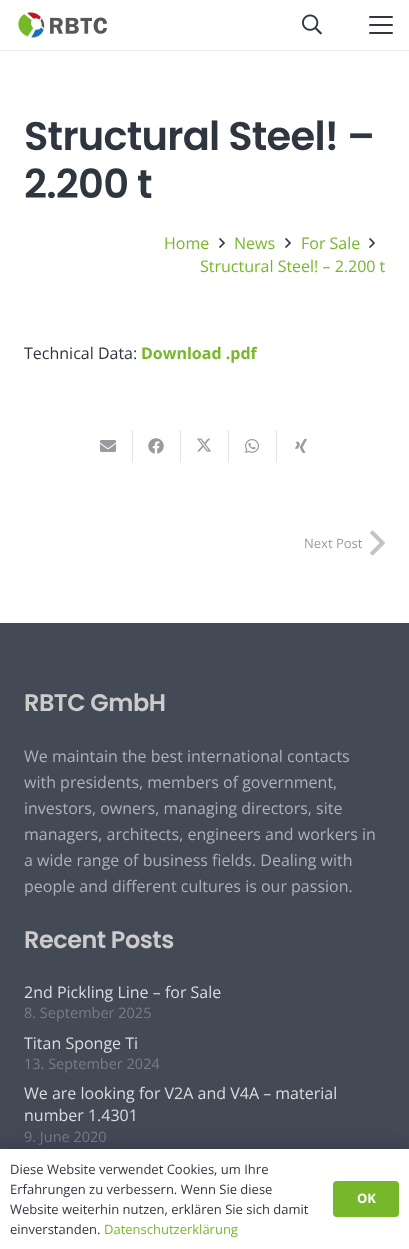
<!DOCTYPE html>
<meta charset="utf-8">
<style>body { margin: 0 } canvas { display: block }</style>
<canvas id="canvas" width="409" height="1249"></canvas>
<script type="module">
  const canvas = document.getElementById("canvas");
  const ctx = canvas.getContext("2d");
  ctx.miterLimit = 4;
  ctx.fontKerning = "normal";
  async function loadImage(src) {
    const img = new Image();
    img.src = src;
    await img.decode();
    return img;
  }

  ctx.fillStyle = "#ffffff";
  ctx.fillRect(0, 0, 409, 1249);
  ctx.fillStyle = "#ebebeb";
  ctx.fillRect(0, 50, 409, 1);
  ctx.drawImage(await loadImage("img1.png"), 18, 12, 89, 26);
  ctx.drawImage(await loadImage("img2.png"), 302, 14, 20, 21);
  ctx.fillStyle = "#303640";
  ctx.beginPath();
  ctx.roundRect(369, 24, 24, 2, 1);
  ctx.fill();
  ctx.beginPath();
  ctx.roundRect(369, 16, 24, 2, 1);
  ctx.fill();
  ctx.beginPath();
  ctx.roundRect(369, 32, 24, 2, 1);
  ctx.fill();
  ctx.letterSpacing = "-0.75px";
  ctx.font = "600 40px Poppins";
  ctx.fillText("Structural Steel! –", 24, 150);
  ctx.fillText("2.200 t", 24, 198);
  ctx.letterSpacing = "0px";
  ctx.font = "16px Open Sans";
  ctx.fillStyle = "#76b82a";
  ctx.fillText("Home", 164, 249);
  ctx.drawImage(await loadImage("img3.png"), 219, 238, 6, 10);
  ctx.fillText("News", 234, 249);
  ctx.drawImage(await loadImage("img3.png"), 285, 238, 6, 10);
  ctx.fillText("For Sale", 301, 249);
  ctx.drawImage(await loadImage("img3.png"), 369, 238, 6, 10);
  ctx.fillText("Structural Steel! – 2.200 t", 200, 272);
  ctx.fillStyle = "#303640";
  ctx.fillText("Technical Data:", 24, 359);
  ctx.font = "bold 16px Open Sans";
  ctx.fillStyle = "#76b82a";
  ctx.fillText("Download .pdf", 141, 359);
  ctx.fillStyle = "#e1e5e8";
  ctx.fillRect(132, 430, 1, 32);
  ctx.drawImage(await loadImage("img4.png"), 100, 440, 16, 12);
  ctx.fillRect(180, 430, 1, 32);
  ctx.drawImage(await loadImage("img5.png"), 148, 438, 16, 16);
  ctx.fillRect(228, 430, 1, 32);
  ctx.drawImage(await loadImage("img6.png"), 197, 438, 14, 14);
  ctx.fillRect(276, 430, 1, 32);
  ctx.drawImage(await loadImage("img7.png"), 245, 439, 14, 14);
  ctx.drawImage(await loadImage("img8.png"), 295, 439, 12, 14);
  ctx.font = "13px Open Sans";
  ctx.fillStyle = "#989ba0";
  ctx.fillText("Next Post", 304, 548);
  ctx.drawImage(await loadImage("img9.png"), 370, 530, 15, 26);
  ctx.fillStyle = "#434955";
  ctx.fillRect(0, 623, 409, 526);
  ctx.letterSpacing = "-0.5px";
  ctx.font = "600 24px Poppins";
  ctx.fillStyle = "#cccccc";
  ctx.fillText("RBTC GmbH", 24, 711);
  ctx.letterSpacing = "0px";
  ctx.font = "16px Open Sans";
  ctx.fillStyle = "#aab2bd";
  ctx.fillText("We maintain the best international contacts", 24, 762);
  ctx.fillText("with presidents, members of government,", 24, 788);
  ctx.fillText("investors, owners, managing directors, site", 24, 814);
  ctx.fillText("managers, architects, engineers and workers in", 24, 840);
  ctx.fillText("a wide range of business fields. Dealing with", 24, 866);
  ctx.fillText("people and different cultures is our passion.", 24, 892);
  ctx.letterSpacing = "-0.5px";
  ctx.font = "600 24px Poppins";
  ctx.fillStyle = "#cccccc";
  ctx.fillText("Recent Posts", 24, 948);
  ctx.letterSpacing = "0px";
  ctx.font = "16px Open Sans";
  ctx.fillStyle = "#d7dde0";
  ctx.fillText("2nd Pickling Line – for Sale", 24, 998);
  ctx.font = "14.5px Open Sans";
  ctx.fillStyle = "#777e89";
  ctx.fillText("8. September 2025", 24, 1018);
  ctx.font = "16px Open Sans";
  ctx.fillStyle = "#d7dde0";
  ctx.fillText("Titan Sponge Ti", 24, 1049);
  ctx.font = "14.5px Open Sans";
  ctx.fillStyle = "#777e89";
  ctx.fillText("13. September 2024", 24, 1069);
  ctx.font = "16px Open Sans";
  ctx.fillStyle = "#d7dde0";
  ctx.fillText("We are looking for V2A and V4A – material", 24, 1099);
  ctx.fillText("number 1.4301", 24, 1121);
  ctx.font = "14.5px Open Sans";
  ctx.fillStyle = "#777e89";
  ctx.fillText("9. June 2020", 24, 1142);
  ctx.fillStyle = "rgba(0, 0, 0, 0.15)";
  ctx.filter = "blur(7.5px)";
  ctx.beginPath();
  ctx.rect(0, 1144, 409, 100);
  ctx.fill();
  ctx.filter = "none";
  ctx.fillStyle = "#ffffff";
  ctx.fillRect(0, 1149, 409, 100);
  ctx.font = "13px Open Sans";
  ctx.fillStyle = "#303640";
  ctx.fillText("Diese Website verwendet Cookies, um Ihre", 10, 1174);
  ctx.fillText("Erfahrungen zu verbessern. Wenn Sie diese", 10, 1194);
  ctx.fillText("Website weiterhin nutzen, erklären Sie sich damit", 10, 1214);
  ctx.fillText("einverstanden.", 10, 1234);
  ctx.fillStyle = "#76b82a";
  ctx.fillText("Datenschutzerklärung", 104, 1234);
  ctx.beginPath();
  ctx.roundRect(333, 1181, 66, 36, 4);
  ctx.fill();
  ctx.font = "bold 13px Open Sans";
  ctx.fillStyle = "#ffffff";
  ctx.fillText("OK", 357, 1203);
</script>
